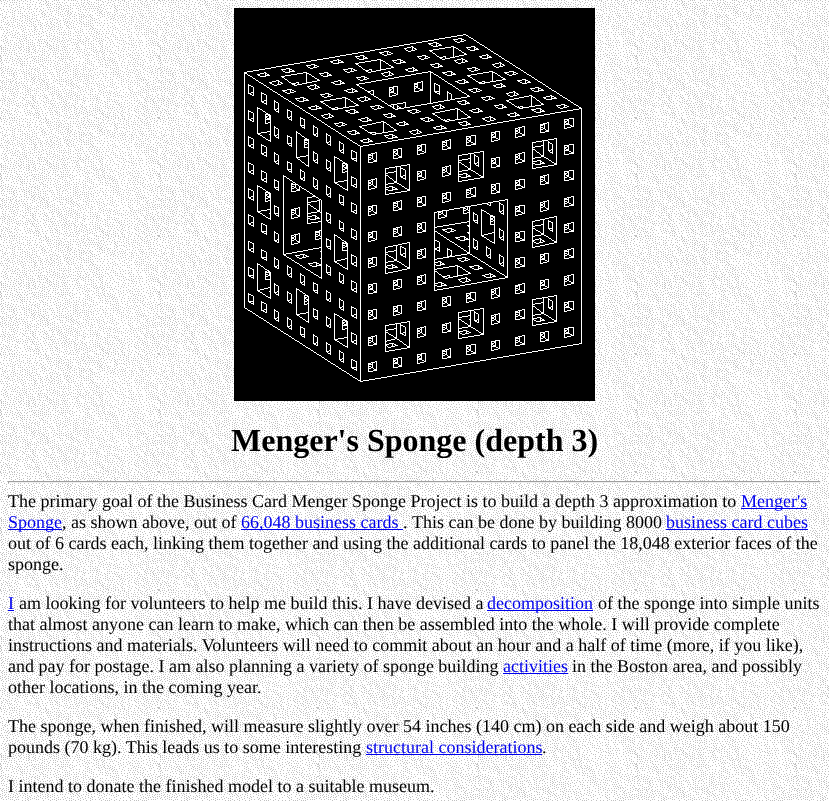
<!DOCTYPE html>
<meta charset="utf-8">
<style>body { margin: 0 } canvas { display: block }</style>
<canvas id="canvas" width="829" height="801"></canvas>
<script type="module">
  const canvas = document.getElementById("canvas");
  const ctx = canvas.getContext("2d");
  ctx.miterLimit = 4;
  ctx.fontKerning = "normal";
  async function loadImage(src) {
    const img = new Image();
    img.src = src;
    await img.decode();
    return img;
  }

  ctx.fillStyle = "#ffffff";
  ctx.fillRect(0, 0, 829, 801);
  ctx.drawImage(await loadImage("img1.png"), 0, 0, 829, 801);
  ctx.drawImage(await loadImage("img2.png"), 234, 8, 361, 393);
  ctx.font = "bold 32px Liberation Serif";
  ctx.fillStyle = "#000000";
  ctx.fillText("Menger's Sponge (depth 3)", 231, 451);
  ctx.fillStyle = "#9f9f9f";
  ctx.fillRect(8, 481, 813, 1);
  ctx.fillStyle = "#eeeeee";
  ctx.fillRect(820, 481, 1, 2);
  ctx.fillRect(8, 482, 813, 1);
  ctx.fillStyle = "#9f9f9f";
  ctx.fillRect(8, 481, 1, 2);
  ctx.font = "18px Liberation Serif";
  ctx.fillStyle = "#000000";
  ctx.fillText("The primary goal of the Business Card Menger Sponge Project is to build a depth 3 approximation to", 8, 507);
  ctx.fillStyle = "#0000ee";
  ctx.fillRect(741, 508, 66, 1);
  ctx.fillText("Menger's", 741, 507);
  ctx.fillRect(8, 529, 54, 1);
  ctx.fillText("Sponge", 8, 528);
  ctx.fillStyle = "#000000";
  ctx.fillText(", as shown above, out of", 62, 528);
  ctx.fillStyle = "#0000ee";
  ctx.fillRect(241, 529, 162, 1);
  ctx.fillText("66,048 business cards", 241, 528);
  ctx.fillStyle = "#000000";
  ctx.fillText(".", 403, 528);
  ctx.fillText("This can be done by building 8000", 412, 528);
  ctx.fillStyle = "#0000ee";
  ctx.fillText("business card cubes", 666, 528);
  ctx.fillRect(666, 529, 142, 1);
  ctx.fillStyle = "#000000";
  ctx.fillText("out of 6 cards each, linking them together and using the additional cards to panel the 18,048 exterior faces of the", 8, 549);
  ctx.fillText("sponge.", 8, 570);
  ctx.fillStyle = "#0000ee";
  ctx.fillText("I", 8, 609);
  ctx.fillRect(8, 610, 6, 1);
  ctx.fillStyle = "#000000";
  ctx.fillText("am looking for volunteers to help me build this. I have devised a", 19, 609);
  ctx.fillStyle = "#0000ee";
  ctx.fillRect(487, 610, 106, 1);
  ctx.fillText("decomposition", 487, 609);
  ctx.fillStyle = "#000000";
  ctx.fillText("of the sponge into simple units", 598, 609);
  ctx.fillText("that almost anyone can learn to make, which can then be assembled into the whole. I will provide complete", 8, 630);
  ctx.fillText("instructions and materials. Volunteers will need to commit about an hour and a half of time (more, if you like),", 8, 651);
  ctx.fillText("and pay for postage. I am also planning a variety of sponge building", 8, 672);
  ctx.fillStyle = "#0000ee";
  ctx.fillText("activities", 503, 672);
  ctx.fillRect(503, 673, 65, 1);
  ctx.fillStyle = "#000000";
  ctx.fillText("in the Boston area, and possibly", 572, 672);
  ctx.fillText("other locations, in the coming year.", 8, 693);
  ctx.fillText("The sponge, when finished, will measure slightly over 54 inches (140 cm) on each side and weigh about 150", 8, 732);
  ctx.fillText("pounds (70 kg). This leads us to some interesting", 8, 753);
  ctx.fillStyle = "#0000ee";
  ctx.fillText("structural considerations", 366, 753);
  ctx.fillRect(366, 754, 176, 1);
  ctx.fillStyle = "#000000";
  ctx.fillText(".", 542, 753);
  ctx.fillText("I intend to donate the finished model to a suitable museum.", 8, 792);
</script>
